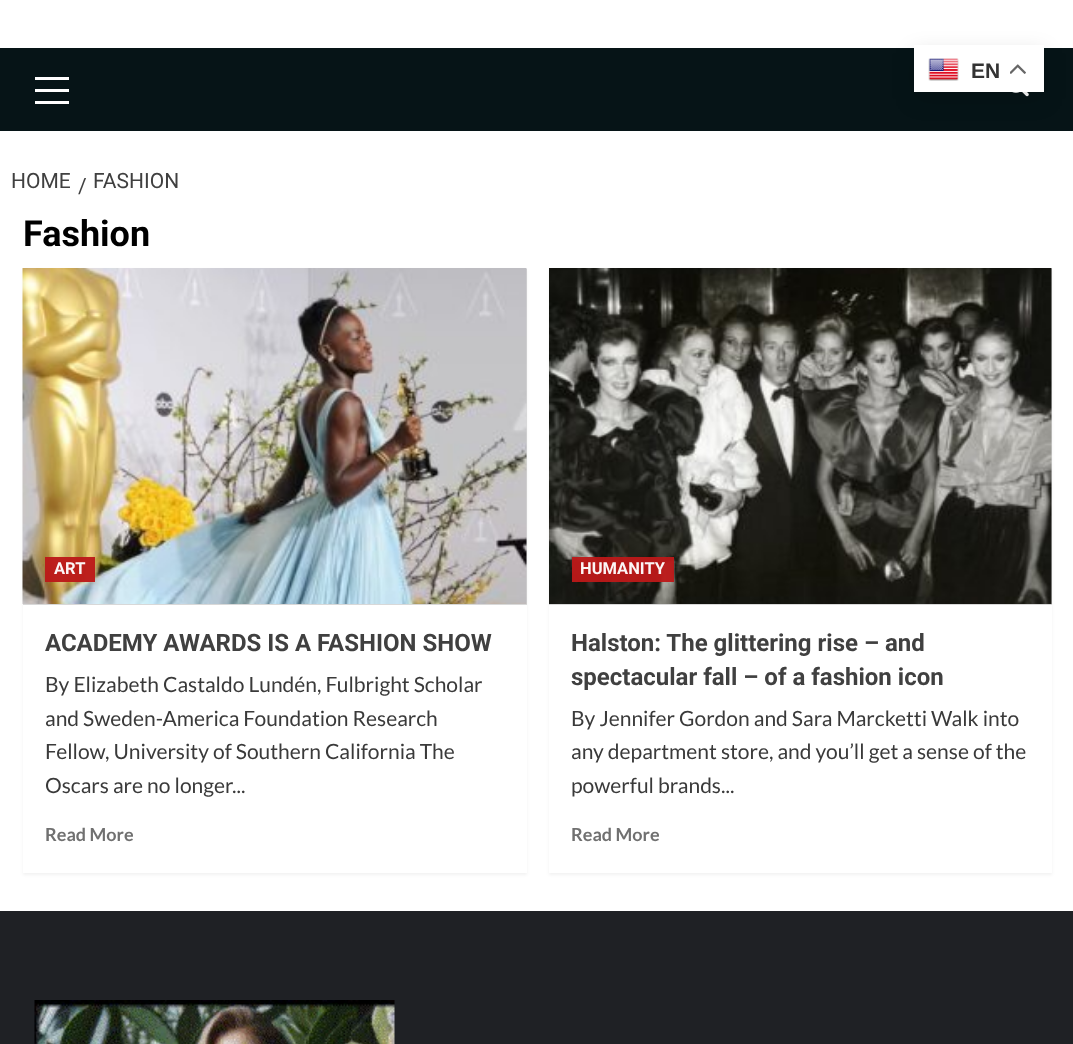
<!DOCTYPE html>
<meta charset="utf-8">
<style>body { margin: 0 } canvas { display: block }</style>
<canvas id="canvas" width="1073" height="1044"></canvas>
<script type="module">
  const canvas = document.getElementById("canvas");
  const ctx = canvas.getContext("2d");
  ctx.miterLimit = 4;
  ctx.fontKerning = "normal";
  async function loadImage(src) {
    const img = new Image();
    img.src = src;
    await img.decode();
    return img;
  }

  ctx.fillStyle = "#ffffff";
  ctx.fillRect(0, 0, 1073, 1044);
  ctx.fillStyle = "#061417";
  ctx.fillRect(0, 48, 1073, 83);
  ctx.drawImage(await loadImage("img3.png"), 1012, 92, 17, 5);
  ctx.fillStyle = "rgba(0, 0, 0, 0.15)";
  ctx.filter = "blur(11px)";
  ctx.beginPath();
  ctx.roundRect(914, 53, 130, 46, 3);
  ctx.fill();
  ctx.filter = "none";
  ctx.fillStyle = "#ffffff";
  ctx.fillRect(914, 45, 130, 47);
  ctx.drawImage(await loadImage("img1.png"), 928, 58, 31, 23);
  ctx.font = "bold 21px Liberation Sans";
  ctx.fillStyle = "#333333";
  ctx.fillText("EN", 971, 78);
  ctx.drawImage(await loadImage("img2.png"), 1010, 64, 16, 10);
  ctx.fillStyle = "#ffffff";
  ctx.fillRect(35, 89, 34, 3);
  ctx.fillRect(35, 77, 34, 3);
  ctx.fillRect(35, 101, 34, 3);
  ctx.font = "21px Roboto";
  ctx.fillStyle = "#404040";
  ctx.fillText("HOME", 11, 188);
  ctx.fillText("/", 78, 193);
  ctx.fillText("FASHION", 93, 188);
  ctx.font = "bold 36px Roboto";
  ctx.fillStyle = "#000000";
  ctx.fillText("Fashion", 23, 246);
  ctx.fillStyle = "rgba(0, 0, 0, 0.05)";
  ctx.filter = "blur(1.5px)";
  ctx.beginPath();
  ctx.rect(23, 270, 504, 605);
  ctx.fill();
  ctx.filter = "none";
  ctx.fillStyle = "#ffffff";
  ctx.fillRect(23, 605, 504, 268);
  ctx.fillStyle = "#d8d8d8";
  ctx.fillRect(23, 269, 504, 336);
  ctx.drawImage(await loadImage("img4.png"), 22, 268, 505, 336);
  ctx.fillStyle = "rgba(187, 25, 25, 0.96)";
  ctx.fillRect(45, 557, 50, 25);
  ctx.font = "bold 16.5px Roboto";
  ctx.fillStyle = "#fcf6f6";
  ctx.fillText("ART", 54, 574);
  ctx.font = "bold 24px Roboto";
  ctx.fillStyle = "#404040";
  ctx.fillText("ACADEMY AWARDS IS A FASHION SHOW", 45, 651);
  ctx.font = "21px Lato";
  ctx.fillStyle = "#3a3a3a";
  ctx.fillText("By Elizabeth Castaldo Lundén, Fulbright Scholar", 45, 692);
  ctx.fillText("and Sweden-America Foundation Research", 45, 726);
  ctx.fillText("Fellow, University of Southern California The", 45, 759);
  ctx.fillText("Oscars are no longer...", 45, 793);
  ctx.font = "bold 18px Lato";
  ctx.fillStyle = "#707070";
  ctx.fillText("Read More", 45, 841);
  ctx.fillStyle = "rgba(0, 0, 0, 0.05)";
  ctx.filter = "blur(1.5px)";
  ctx.beginPath();
  ctx.rect(549, 270, 503, 605);
  ctx.fill();
  ctx.filter = "none";
  ctx.fillStyle = "#ffffff";
  ctx.fillRect(549, 605, 503, 268);
  ctx.fillStyle = "#d8d8d8";
  ctx.fillRect(549, 269, 503, 336);
  ctx.drawImage(await loadImage("img5.png"), 549, 268, 503, 336);
  ctx.fillStyle = "rgba(187, 25, 25, 0.96)";
  ctx.fillRect(572, 557, 102, 25);
  ctx.font = "bold 16.5px Roboto";
  ctx.fillStyle = "#fcf6f6";
  ctx.fillText("HUMANITY", 580, 574);
  ctx.font = "bold 24px Roboto";
  ctx.fillStyle = "#404040";
  ctx.fillText("Halston: The glittering rise – and", 571, 651);
  ctx.fillText("spectacular fall – of a fashion icon", 571, 685);
  ctx.font = "21px Lato";
  ctx.fillStyle = "#3a3a3a";
  ctx.fillText("By Jennifer Gordon and Sara Marcketti Walk into", 571, 726);
  ctx.fillText("any department store, and you’ll get a sense of the", 571, 759);
  ctx.fillText("powerful brands...", 571, 793);
  ctx.font = "bold 18px Lato";
  ctx.fillStyle = "#707070";
  ctx.fillText("Read More", 571, 841);
  ctx.fillStyle = "#1f2125";
  ctx.fillRect(0, 911, 1073, 133);
  ctx.drawImage(await loadImage("img6.png"), 34, 1000, 361, 44);
</script>
